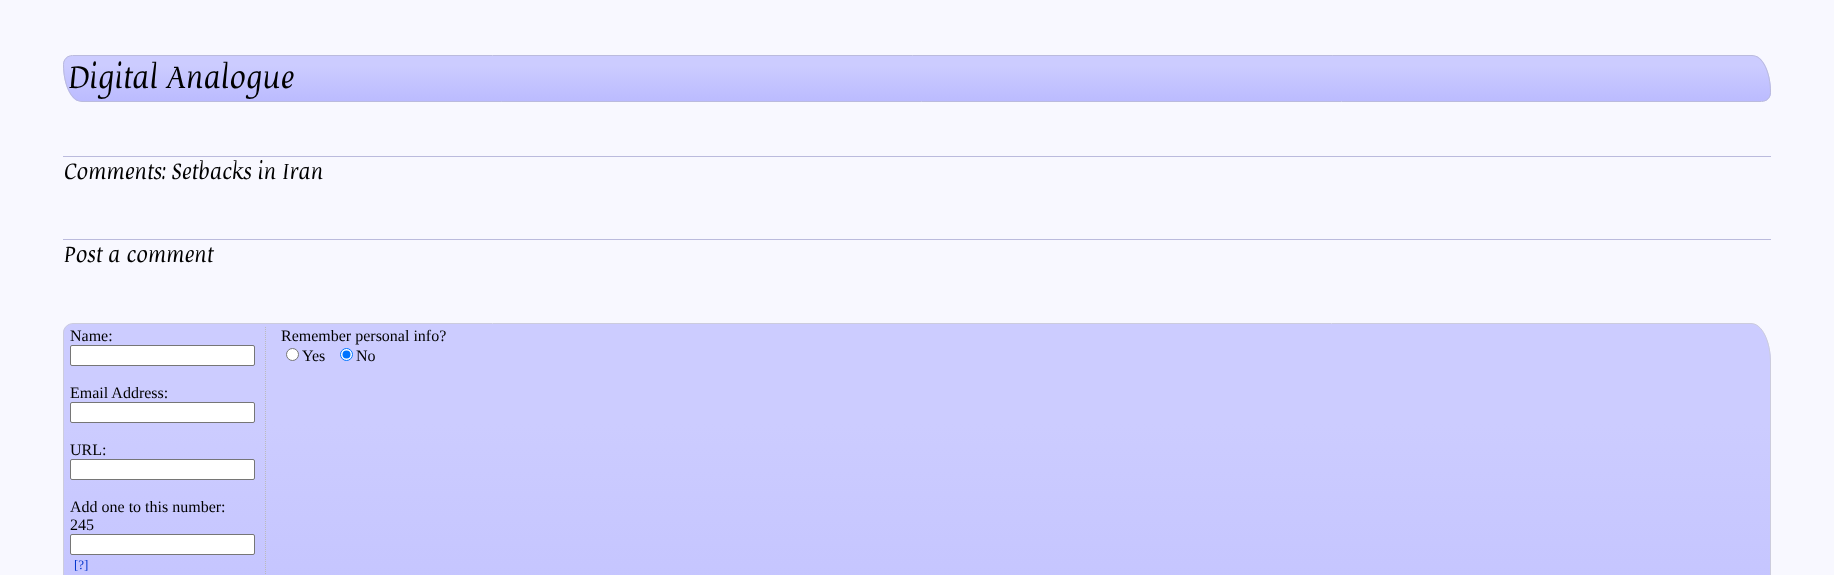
<!DOCTYPE html>
<meta charset="utf-8">
<style>body { margin: 0 } canvas { display: block }</style>
<canvas id="canvas" width="1834" height="575"></canvas>
<script type="module">
  const canvas = document.getElementById("canvas");
  const ctx = canvas.getContext("2d");
  ctx.miterLimit = 4;
  ctx.fontKerning = "normal";
  let gradient;

  ctx.fillStyle = "#f8f8ff";
  ctx.fillRect(0, 0, 1834, 575);
  gradient = ctx.createLinearGradient(64, 65, 64, 101);
  gradient.addColorStop(0, "#ccccff");
  gradient.addColorStop(1, "#bbbbff");
  ctx.fillStyle = gradient;
  ctx.beginPath();
  ctx.moveTo(77, 101);
  ctx.bezierCurveTo(69, 97, 63, 82, 63, 64);
  ctx.bezierCurveTo(63, 61, 65, 58, 68, 56);
  ctx.lineTo(1757, 56);
  ctx.bezierCurveTo(1765, 60, 1771, 75, 1771, 93);
  ctx.bezierCurveTo(1771, 96, 1769, 99, 1766, 101);
  ctx.closePath();
  ctx.fill();
  ctx.beginPath();
  ctx.moveTo(72.5, 55.5);
  ctx.lineTo(1752, 55.5);
  ctx.bezierCurveTo(1762.5, 55.5, 1770.5, 72, 1770.5, 92.5);
  ctx.bezierCurveTo(1770.5, 97.5, 1766.5, 101.5, 1761.5, 101.5);
  ctx.lineTo(82, 101.5);
  ctx.bezierCurveTo(71.5, 101.5, 63.5, 85, 63.5, 64.5);
  ctx.bezierCurveTo(63.5, 59.5, 67.5, 55.5, 72.5, 55.5);
  ctx.closePath();
  ctx.strokeStyle = "#bbbbdd";
  ctx.stroke();
  ctx.font = "28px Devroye";
  ctx.fillStyle = "#000000";
  ctx.fillText("Digital Analogue", 68, 88);
  ctx.fillStyle = "#bbbbdd";
  ctx.fillRect(63, 156, 1708, 1);
  ctx.font = "20px Devroye";
  ctx.fillStyle = "#000000";
  ctx.fillText("Comments: Setbacks in Iran", 63, 179);
  ctx.fillStyle = "#bbbbdd";
  ctx.fillRect(63, 239, 1708, 1);
  ctx.fillStyle = "#000000";
  ctx.fillText("Post a comment", 63, 262);
  gradient = ctx.createLinearGradient(64, 424, 64, 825);
  gradient.addColorStop(0, "#ccccff");
  gradient.addColorStop(1, "#bbbbff");
  ctx.fillStyle = gradient;
  ctx.beginPath();
  ctx.moveTo(63, 333);
  ctx.lineTo(63, 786);
  ctx.bezierCurveTo(63, 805, 70, 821, 79, 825);
  ctx.lineTo(1765, 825);
  ctx.bezierCurveTo(1769, 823, 1771, 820, 1771, 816);
  ctx.lineTo(1771, 363);
  ctx.bezierCurveTo(1771, 344, 1764, 328, 1755, 324);
  ctx.lineTo(69, 324);
  ctx.bezierCurveTo(65, 326, 63, 329, 63, 333);
  ctx.closePath();
  ctx.fill();
  ctx.beginPath();
  ctx.moveTo(73, 323.5);
  ctx.lineTo(1751, 323.5);
  ctx.bezierCurveTo(1762, 323.5, 1770.5, 341, 1770.5, 363);
  ctx.lineTo(1770.5, 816);
  ctx.bezierCurveTo(1770.5, 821, 1766, 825.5, 1761, 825.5);
  ctx.lineTo(83, 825.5);
  ctx.bezierCurveTo(72, 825.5, 63.5, 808, 63.5, 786);
  ctx.lineTo(63.5, 333);
  ctx.bezierCurveTo(63.5, 328, 68, 323.5, 73, 323.5);
  ctx.closePath();
  ctx.strokeStyle = "#ccccdd";
  ctx.stroke();
  ctx.beginPath();
  ctx.moveTo(265.5, 327);
  ctx.lineTo(265.5, 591);
  ctx.strokeStyle = "#bbbbbb";
  ctx.setLineDash([1, 1]);
  ctx.stroke();
  ctx.font = "16px Liberation Serif";
  ctx.fillStyle = "#000000";
  ctx.fillText("Name:", 70, 341);
  ctx.fillStyle = "#ffffff";
  ctx.beginPath();
  ctx.roundRect(70.5, 345.5, 184, 20, 1.5);
  ctx.fill();
  ctx.strokeStyle = "#767676";
  ctx.setLineDash([]);
  ctx.stroke();
  ctx.fillStyle = "#000000";
  ctx.fillText("Email Address:", 70, 398);
  ctx.fillStyle = "#ffffff";
  ctx.beginPath();
  ctx.roundRect(70.5, 402.5, 184, 20, 1.5);
  ctx.fill();
  ctx.stroke();
  ctx.fillStyle = "#000000";
  ctx.fillText("URL:", 70, 455);
  ctx.fillStyle = "#ffffff";
  ctx.beginPath();
  ctx.roundRect(70.5, 459.5, 184, 20, 1.5);
  ctx.fill();
  ctx.stroke();
  ctx.fillStyle = "#000000";
  ctx.fillText("Add one to this number:", 70, 512);
  ctx.fillText("245", 70, 530);
  ctx.fillStyle = "#ffffff";
  ctx.beginPath();
  ctx.roundRect(70.5, 534.5, 184, 20, 1.5);
  ctx.fill();
  ctx.stroke();
  ctx.font = "13px Liberation Serif";
  ctx.fillStyle = "#0033cc";
  ctx.fillText("[?]", 74, 569);
  ctx.font = "16px Liberation Serif";
  ctx.fillStyle = "#000000";
  ctx.fillText("Remember personal info?", 281, 341);
  ctx.fillStyle = "#ffffff";
  ctx.beginPath();
  ctx.arc(292.5, 354.5, 6, 0, Math.PI * 2);
  ctx.fill();
  ctx.stroke();
  ctx.fillStyle = "#000000";
  ctx.fillText("Yes", 302, 361);
  ctx.fillStyle = "#ffffff";
  ctx.beginPath();
  ctx.arc(346.5, 354.5, 6, 0, Math.PI * 2);
  ctx.fill();
  ctx.strokeStyle = "#0075ff";
  ctx.stroke();
  ctx.fillStyle = "#0075ff";
  ctx.beginPath();
  ctx.arc(346.5, 354.5, 4, 0, Math.PI * 2);
  ctx.fill();
  ctx.fillStyle = "#000000";
  ctx.fillText("No", 356, 361);
</script>
